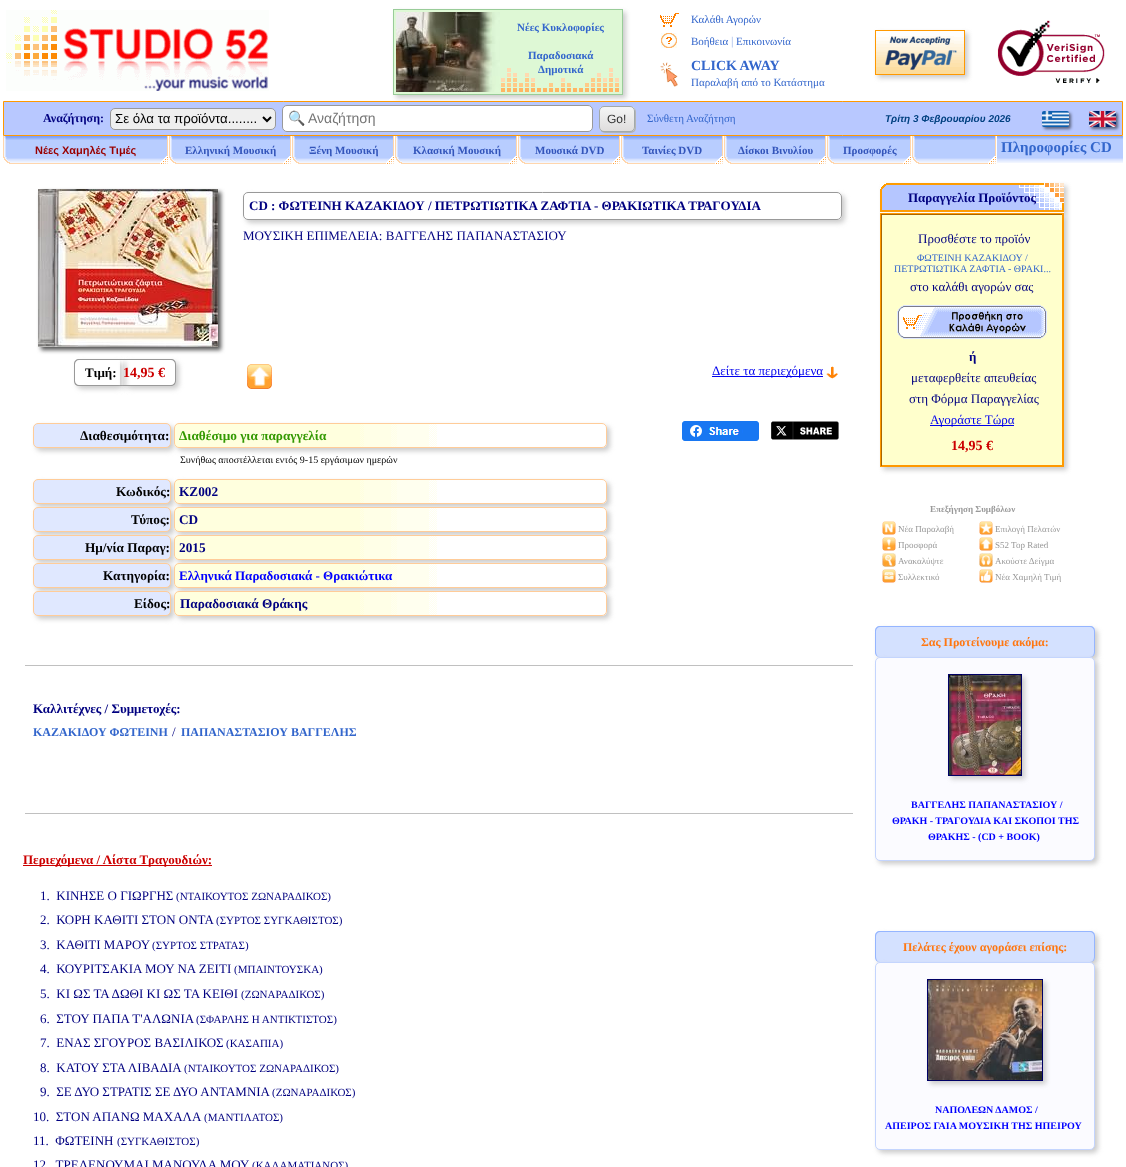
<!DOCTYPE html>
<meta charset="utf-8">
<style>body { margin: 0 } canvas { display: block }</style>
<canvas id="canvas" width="1126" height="1167"></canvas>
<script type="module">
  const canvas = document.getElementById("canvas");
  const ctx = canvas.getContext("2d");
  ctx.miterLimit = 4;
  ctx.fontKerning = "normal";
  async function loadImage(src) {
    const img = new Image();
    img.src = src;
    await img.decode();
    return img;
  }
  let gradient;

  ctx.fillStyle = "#ffffff";
  ctx.fillRect(0, 0, 1126, 1167);
  ctx.drawImage(await loadImage("img1.png"), 6, 10, 263, 81);
  ctx.fillStyle = "#cccccc";
  ctx.filter = "blur(2.5px)";
  ctx.beginPath();
  ctx.rect(396, 12, 230, 86);
  ctx.fill();
  ctx.filter = "none";
  ctx.drawImage(await loadImage("img2.png"), 394, 10, 228, 84);
  ctx.strokeStyle = "#99cc99";
  ctx.strokeRect(393.5, 9.5, 229, 85);
  ctx.drawImage(await loadImage("img3.png"), 396, 12, 104, 80);
  ctx.font = "bold 11px Liberation Serif";
  ctx.fillStyle = "#3366cc";
  ctx.fillText("Νέες Κυκλοφορίες", 517, 31);
  ctx.fillText("Παραδοσιακά", 528, 59);
  ctx.fillText("Δημοτικά", 538, 73);
  ctx.drawImage(await loadImage("img4.png"), 660, 13, 19, 14);
  ctx.font = "11px Liberation Serif";
  ctx.fillText("Καλάθι Αγορών", 691, 23);
  ctx.drawImage(await loadImage("img5.png"), 661, 33, 16, 15);
  ctx.fillText("Βοήθεια", 691, 45);
  ctx.font = "12px Liberation Serif";
  ctx.fillStyle = "#99b2e6";
  ctx.fillText("|", 731, 45);
  ctx.font = "11px Liberation Serif";
  ctx.fillStyle = "#3366cc";
  ctx.fillText("Επικοινωνία", 736, 45);
  ctx.drawImage(await loadImage("img6.png"), 660, 62, 18, 25);
  ctx.font = "bold 14px Liberation Serif";
  ctx.fillText("CLICK AWAY", 691, 70);
  ctx.font = "11px Liberation Serif";
  ctx.fillText("Παραλαβή από το Κατάστημα", 691, 86);
  ctx.fillStyle = "#cccccc";
  ctx.filter = "blur(2.5px)";
  ctx.beginPath();
  ctx.rect(878, 33, 90, 45);
  ctx.fill();
  ctx.filter = "none";
  ctx.drawImage(await loadImage("img7.png"), 875, 30, 90, 45);
  ctx.drawImage(await loadImage("img8.png"), 997, 20, 108, 63);
  ctx.fillStyle = "#b8c8ff";
  ctx.beginPath();
  ctx.rect(3.5, 101.5, 1119, 34);
  ctx.fill();
  ctx.strokeStyle = "#ff9900";
  ctx.stroke();
  ctx.font = "bold 12px Liberation Serif";
  ctx.fillStyle = "#000080";
  ctx.fillText("Αναζήτηση:", 43, 122);
  ctx.fillStyle = "#efefef";
  ctx.beginPath();
  ctx.roundRect(110.5, 108.5, 165, 21, 4.5);
  ctx.fill();
  ctx.strokeStyle = "#999999";
  ctx.stroke();
  ctx.beginPath();
  ctx.moveTo(263, 117);
  ctx.lineTo(267, 121);
  ctx.lineTo(271, 117);
  ctx.strokeStyle = "#000000";
  ctx.lineWidth = 2;
  ctx.stroke();
  ctx.font = "13.25px Liberation Sans";
  ctx.fillStyle = "#000000";
  ctx.fillText("Σε όλα τα προϊόντα........", 115, 123);
  ctx.fillStyle = "#ffffff";
  ctx.beginPath();
  ctx.roundRect(282.5, 105.5, 310, 26, 4.5);
  ctx.fill();
  ctx.strokeStyle = "#999999";
  ctx.lineWidth = 1;
  ctx.stroke();
  ctx.save();
  ctx.beginPath();
  ctx.rect(288, 110, 302, 16);
  ctx.clip();
  ctx.font = "14px Noto Color Emoji";
  ctx.fillStyle = "#757575";
  ctx.fillText("🔍", 288, 123);
  ctx.restore();
  ctx.font = "14px Liberation Sans";
  ctx.fillStyle = "#757575";
  ctx.fillText("Αναζήτηση", 308, 123);
  ctx.fillStyle = "#b4b5b5";
  ctx.filter = "blur(0.5px)";
  ctx.beginPath();
  ctx.roundRect(600, 107, 36, 26, 5);
  ctx.fill();
  ctx.filter = "none";
  ctx.save();
  ctx.beginPath();
  ctx.roundRect(599, 106, 36, 26, 5);
  ctx.clip();
  gradient = ctx.createLinearGradient(617, 107, 617, 131);
  gradient.addColorStop(0, "#f4f5f5");
  gradient.addColorStop(1, "#dfdddd");
  ctx.fillStyle = gradient;
  ctx.fillRect(599, 107, 36, 24);
  ctx.restore();
  ctx.beginPath();
  ctx.roundRect(599.5, 106.5, 35, 25, 4.5);
  ctx.strokeStyle = "#a2a9a9";
  ctx.stroke();
  ctx.font = "12px Liberation Sans";
  ctx.fillStyle = "#303030";
  ctx.fillText("Go!", 607, 123);
  ctx.font = "11px Liberation Serif";
  ctx.fillStyle = "#3366cc";
  ctx.fillText("Σύνθετη Αναζήτηση", 647, 122);
  ctx.font = "italic bold 10px Liberation Sans";
  ctx.fillStyle = "#004080";
  ctx.fillText("Τρίτη 3 Φεβρουαρίου 2026", 885, 122);
  ctx.fillStyle = "rgba(0, 0, 0, 0.5)";
  ctx.filter = "blur(1.5px)";
  ctx.beginPath();
  ctx.roundRect(1044, 113, 27, 16, 2);
  ctx.fill();
  ctx.filter = "none";
  ctx.drawImage(await loadImage("img9.png"), 1042, 111, 27, 16);
  ctx.filter = "blur(1.5px)";
  ctx.beginPath();
  ctx.roundRect(1091, 113, 27, 16, 2);
  ctx.fill();
  ctx.filter = "none";
  ctx.drawImage(await loadImage("img10.png"), 1089, 111, 27, 16);
  ctx.drawImage(await loadImage("img11.png"), 3, 136, 166, 28);
  ctx.font = "bold 11px Liberation Sans";
  ctx.fillStyle = "#990000";
  ctx.fillText("Νέες Χαμηλές Τιμές", 35, 154);
  ctx.drawImage(await loadImage("img12.png"), 169, 136, 123, 28);
  ctx.font = "bold 11px Liberation Serif";
  ctx.fillStyle = "#3355bb";
  ctx.fillText("Ελληνική Μουσική", 185, 154);
  ctx.drawImage(await loadImage("img13.png"), 292, 136, 103, 28);
  ctx.fillText("Ξένη Μουσική", 309, 154);
  ctx.drawImage(await loadImage("img12.png"), 395, 136, 123, 28);
  ctx.fillText("Κλασική Μουσική", 413, 154);
  ctx.drawImage(await loadImage("img13.png"), 518, 136, 103, 28);
  ctx.fillText("Μουσικά DVD", 535, 154);
  ctx.drawImage(await loadImage("img13.png"), 621, 136, 103, 28);
  ctx.fillText("Ταινίες DVD", 642, 154);
  ctx.drawImage(await loadImage("img13.png"), 724, 136, 103, 28);
  ctx.fillText("Δίσκοι Βινυλίου", 738, 154);
  ctx.drawImage(await loadImage("img14.png"), 827, 136, 85, 28);
  ctx.fillText("Προσφορές", 843, 154);
  ctx.drawImage(await loadImage("img14.png"), 912, 136, 85, 28);
  ctx.drawImage(await loadImage("img15.png"), 997, 136, 126, 27);
  ctx.font = "bold 15px Liberation Serif";
  ctx.fillStyle = "#3366cc";
  ctx.fillText("Πληροφορίες CD", 1001, 152);
  ctx.fillStyle = "#555555";
  ctx.filter = "blur(2px)";
  ctx.beginPath();
  ctx.rect(41, 192, 180, 158);
  ctx.fill();
  ctx.filter = "none";
  ctx.drawImage(await loadImage("img16.png"), 38, 189, 180, 158);
  ctx.save();
  ctx.beginPath();
  ctx.moveTo(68, 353);
  ctx.lineTo(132, 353);
  ctx.lineTo(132, 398);
  ctx.lineTo(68, 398);
  ctx.closePath();
  ctx.moveTo(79, 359);
  ctx.lineTo(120, 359);
  ctx.lineTo(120, 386);
  ctx.lineTo(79, 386);
  ctx.bezierCurveTo(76, 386, 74, 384, 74, 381);
  ctx.lineTo(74, 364);
  ctx.bezierCurveTo(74, 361, 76, 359, 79, 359);
  ctx.closePath();
  ctx.clip("evenodd");
  ctx.fillStyle = "#cccccc";
  ctx.filter = "blur(2.5px)";
  ctx.beginPath();
  ctx.roundRect(77, 362, 46, 27, 5);
  ctx.fill();
  ctx.filter = "none";
  ctx.restore();
  ctx.fillStyle = "#999999";
  ctx.beginPath();
  ctx.moveTo(79, 359);
  ctx.lineTo(120, 359);
  ctx.lineTo(120, 386);
  ctx.lineTo(79, 386);
  ctx.bezierCurveTo(76, 386, 74, 384, 74, 381);
  ctx.lineTo(74, 364);
  ctx.bezierCurveTo(74, 361, 76, 359, 79, 359);
  ctx.closePath();
  ctx.moveTo(79, 360);
  ctx.lineTo(120, 360);
  ctx.lineTo(120, 385);
  ctx.lineTo(79, 385);
  ctx.bezierCurveTo(77, 385, 75, 383, 75, 381);
  ctx.lineTo(75, 364);
  ctx.bezierCurveTo(75, 362, 77, 360, 79, 360);
  ctx.closePath();
  ctx.fill("evenodd");
  ctx.save();
  ctx.beginPath();
  ctx.moveTo(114, 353);
  ctx.lineTo(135, 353);
  ctx.lineTo(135, 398);
  ctx.lineTo(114, 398);
  ctx.closePath();
  ctx.moveTo(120, 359);
  ctx.lineTo(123, 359);
  ctx.lineTo(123, 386);
  ctx.lineTo(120, 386);
  ctx.closePath();
  ctx.clip("evenodd");
  ctx.fillStyle = "#cccccc";
  ctx.filter = "blur(2.5px)";
  ctx.beginPath();
  ctx.rect(123, 362, 3, 27);
  ctx.fill();
  ctx.filter = "none";
  ctx.restore();
  ctx.font = "bold 13px Liberation Serif";
  ctx.fillStyle = "#000000";
  ctx.fillText("Τιμή:", 85, 377);
  ctx.fillStyle = "#999999";
  ctx.fillRect(120, 359, 3, 1);
  ctx.fillRect(120, 385, 3, 1);
  ctx.save();
  ctx.beginPath();
  ctx.moveTo(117, 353);
  ctx.lineTo(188, 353);
  ctx.lineTo(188, 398);
  ctx.lineTo(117, 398);
  ctx.closePath();
  ctx.moveTo(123, 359);
  ctx.lineTo(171, 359);
  ctx.bezierCurveTo(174, 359, 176, 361, 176, 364);
  ctx.lineTo(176, 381);
  ctx.bezierCurveTo(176, 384, 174, 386, 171, 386);
  ctx.lineTo(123, 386);
  ctx.closePath();
  ctx.clip("evenodd");
  ctx.fillStyle = "#cccccc";
  ctx.filter = "blur(2.5px)";
  ctx.beginPath();
  ctx.roundRect(126, 362, 53, 27, 5);
  ctx.fill();
  ctx.filter = "none";
  ctx.restore();
  ctx.beginPath();
  ctx.moveTo(123, 359);
  ctx.lineTo(171, 359);
  ctx.bezierCurveTo(174, 359, 176, 361, 176, 364);
  ctx.lineTo(176, 381);
  ctx.bezierCurveTo(176, 384, 174, 386, 171, 386);
  ctx.lineTo(123, 386);
  ctx.closePath();
  ctx.moveTo(123, 360);
  ctx.lineTo(171, 360);
  ctx.bezierCurveTo(173, 360, 175, 362, 175, 364);
  ctx.lineTo(175, 381);
  ctx.bezierCurveTo(175, 383, 173, 385, 171, 385);
  ctx.lineTo(123, 385);
  ctx.closePath();
  ctx.fill("evenodd");
  ctx.font = "bold 14px Liberation Serif";
  ctx.fillStyle = "#cc0000";
  ctx.fillText("14,95 €", 123, 377);
  ctx.save();
  ctx.beginPath();
  ctx.moveTo(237, 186);
  ctx.lineTo(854, 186);
  ctx.lineTo(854, 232);
  ctx.lineTo(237, 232);
  ctx.closePath();
  ctx.moveTo(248, 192);
  ctx.lineTo(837, 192);
  ctx.bezierCurveTo(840, 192, 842, 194, 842, 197);
  ctx.lineTo(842, 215);
  ctx.bezierCurveTo(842, 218, 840, 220, 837, 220);
  ctx.lineTo(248, 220);
  ctx.bezierCurveTo(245, 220, 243, 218, 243, 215);
  ctx.lineTo(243, 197);
  ctx.bezierCurveTo(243, 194, 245, 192, 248, 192);
  ctx.closePath();
  ctx.clip("evenodd");
  ctx.fillStyle = "#cccccc";
  ctx.filter = "blur(2.5px)";
  ctx.beginPath();
  ctx.roundRect(246, 195, 599, 28, 5);
  ctx.fill();
  ctx.filter = "none";
  ctx.restore();
  ctx.beginPath();
  ctx.roundRect(243.5, 192.5, 598, 27, 4.5);
  ctx.strokeStyle = "#999999";
  ctx.stroke();
  ctx.font = "bold 13px Liberation Serif";
  ctx.fillStyle = "#000080";
  ctx.fillText("CD : ΦΩΤΕΙΝΗ ΚΑΖΑΚΙΔΟΥ / ΠΕΤΡΩΤΙΩΤΙΚΑ ΖΑΦΤΙΑ - ΘΡΑΚΙΩΤΙΚΑ ΤΡΑΓΟΥΔΙΑ", 249, 210);
  ctx.font = "13px Liberation Serif";
  ctx.fillText("ΜΟΥΣΙΚΗ ΕΠΙΜΕΛΕΙΑ: ΒΑΓΓΕΛΗΣ ΠΑΠΑΝΑΣΤΑΣΙΟΥ", 243, 240);
  ctx.drawImage(await loadImage("img17.png"), 247, 364, 25, 25);
  ctx.fillStyle = "#0000ee";
  ctx.fillRect(712, 376, 111, 1);
  ctx.fillText("Δείτε τα περιεχόμενα", 712, 375);
  ctx.drawImage(await loadImage("img18.png"), 826, 366, 12, 13);
  ctx.fillStyle = "#cccccc";
  ctx.filter = "blur(2.5px)";
  ctx.beginPath();
  ctx.roundRect(36, 426, 138, 25, 5);
  ctx.fill();
  ctx.filter = "none";
  ctx.fillStyle = "#e0e8ff";
  ctx.beginPath();
  ctx.roundRect(33.5, 423.5, 137, 24, 4.5);
  ctx.fill();
  ctx.strokeStyle = "#ffcc99";
  ctx.stroke();
  ctx.fillStyle = "#cccccc";
  ctx.filter = "blur(2.5px)";
  ctx.beginPath();
  ctx.roundRect(177, 426, 433, 25, 5);
  ctx.fill();
  ctx.filter = "none";
  ctx.font = "bold 13.25px Liberation Serif";
  ctx.fillStyle = "#000000";
  ctx.fillText("Διαθεσιμότητα:", 80, 440);
  ctx.drawImage(await loadImage("img19.png"), 174, 423, 433, 25);
  ctx.beginPath();
  ctx.roundRect(174.5, 423.5, 432, 24, 4.5);
  ctx.stroke();
  ctx.fillStyle = "#339900";
  ctx.fillText("Διαθέσιμο για παραγγελία", 179, 440);
  ctx.font = "10px Liberation Serif";
  ctx.fillStyle = "#000000";
  ctx.fillText("Συνήθως αποστέλλεται εντός 9-15 εργάσιμων ημερών", 180, 463);
  ctx.fillStyle = "#cccccc";
  ctx.filter = "blur(2.5px)";
  ctx.beginPath();
  ctx.roundRect(36, 482, 138, 25, 5);
  ctx.fill();
  ctx.filter = "none";
  ctx.fillStyle = "#e0e8ff";
  ctx.beginPath();
  ctx.roundRect(33.5, 479.5, 137, 24, 4.5);
  ctx.fill();
  ctx.stroke();
  ctx.fillStyle = "#cccccc";
  ctx.filter = "blur(2.5px)";
  ctx.beginPath();
  ctx.roundRect(177, 482, 433, 25, 5);
  ctx.fill();
  ctx.filter = "none";
  ctx.font = "bold 13.25px Liberation Serif";
  ctx.fillStyle = "#000000";
  ctx.fillText("Κωδικός:", 116, 496);
  ctx.drawImage(await loadImage("img19.png"), 174, 479, 433, 25);
  ctx.beginPath();
  ctx.roundRect(174.5, 479.5, 432, 24, 4.5);
  ctx.stroke();
  ctx.fillStyle = "#000080";
  ctx.fillText("KZ002", 179, 496);
  ctx.fillStyle = "#cccccc";
  ctx.filter = "blur(2.5px)";
  ctx.beginPath();
  ctx.roundRect(36, 510, 138, 25, 5);
  ctx.fill();
  ctx.filter = "none";
  ctx.fillStyle = "#e0e8ff";
  ctx.beginPath();
  ctx.roundRect(33.5, 507.5, 137, 24, 4.5);
  ctx.fill();
  ctx.stroke();
  ctx.fillStyle = "#cccccc";
  ctx.filter = "blur(2.5px)";
  ctx.beginPath();
  ctx.roundRect(177, 510, 433, 25, 5);
  ctx.fill();
  ctx.filter = "none";
  ctx.fillStyle = "#000000";
  ctx.fillText("Τύπος:", 131, 524);
  ctx.drawImage(await loadImage("img20.png"), 174, 507, 433, 25);
  ctx.beginPath();
  ctx.roundRect(174.5, 507.5, 432, 24, 4.5);
  ctx.stroke();
  ctx.fillStyle = "#000080";
  ctx.fillText("CD", 179, 524);
  ctx.fillStyle = "#cccccc";
  ctx.filter = "blur(2.5px)";
  ctx.beginPath();
  ctx.roundRect(36, 538, 138, 25, 5);
  ctx.fill();
  ctx.filter = "none";
  ctx.fillStyle = "#e0e8ff";
  ctx.beginPath();
  ctx.roundRect(33.5, 535.5, 137, 24, 4.5);
  ctx.fill();
  ctx.stroke();
  ctx.fillStyle = "#cccccc";
  ctx.filter = "blur(2.5px)";
  ctx.beginPath();
  ctx.roundRect(177, 538, 433, 25, 5);
  ctx.fill();
  ctx.filter = "none";
  ctx.fillStyle = "#000000";
  ctx.fillText("Ημ/νία Παραγ:", 85, 552);
  ctx.drawImage(await loadImage("img21.png"), 174, 535, 433, 25);
  ctx.beginPath();
  ctx.roundRect(174.5, 535.5, 432, 24, 4.5);
  ctx.stroke();
  ctx.fillStyle = "#000080";
  ctx.fillText("2015", 179, 552);
  ctx.fillStyle = "#cccccc";
  ctx.filter = "blur(2.5px)";
  ctx.beginPath();
  ctx.roundRect(36, 566, 138, 25, 5);
  ctx.fill();
  ctx.filter = "none";
  ctx.fillStyle = "#e0e8ff";
  ctx.beginPath();
  ctx.roundRect(33.5, 563.5, 137, 24, 4.5);
  ctx.fill();
  ctx.stroke();
  ctx.fillStyle = "#cccccc";
  ctx.filter = "blur(2.5px)";
  ctx.beginPath();
  ctx.roundRect(177, 566, 433, 25, 5);
  ctx.fill();
  ctx.filter = "none";
  ctx.fillStyle = "#000000";
  ctx.fillText("Κατηγορία:", 103, 580);
  ctx.drawImage(await loadImage("img21.png"), 174, 563, 433, 25);
  ctx.beginPath();
  ctx.roundRect(174.5, 563.5, 432, 24, 4.5);
  ctx.stroke();
  ctx.font = "bold 13px Liberation Serif";
  ctx.fillStyle = "#0000ff";
  ctx.fillText("Ελληνικά Παραδοσιακά - Θρακιώτικα", 179, 580);
  ctx.fillStyle = "#cccccc";
  ctx.filter = "blur(2.5px)";
  ctx.beginPath();
  ctx.roundRect(36, 594, 138, 25, 5);
  ctx.fill();
  ctx.filter = "none";
  ctx.fillStyle = "#e0e8ff";
  ctx.beginPath();
  ctx.roundRect(33.5, 591.5, 137, 24, 4.5);
  ctx.fill();
  ctx.stroke();
  ctx.fillStyle = "#cccccc";
  ctx.filter = "blur(2.5px)";
  ctx.beginPath();
  ctx.roundRect(177, 594, 433, 25, 5);
  ctx.fill();
  ctx.filter = "none";
  ctx.font = "bold 13.25px Liberation Serif";
  ctx.fillStyle = "#000000";
  ctx.fillText("Είδος:", 134, 608);
  ctx.drawImage(await loadImage("img21.png"), 174, 591, 433, 25);
  ctx.beginPath();
  ctx.roundRect(174.5, 591.5, 432, 24, 4.5);
  ctx.stroke();
  ctx.fillStyle = "#000080";
  ctx.fillText("Παραδοσιακά Θράκης", 180, 608);
  ctx.drawImage(await loadImage("img22.png"), 682, 421, 77, 20);
  ctx.drawImage(await loadImage("img23.png"), 771, 421, 68, 19);
  ctx.save();
  ctx.beginPath();
  ctx.moveTo(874, 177);
  ctx.lineTo(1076, 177);
  ctx.lineTo(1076, 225);
  ctx.lineTo(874, 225);
  ctx.closePath();
  ctx.moveTo(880, 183);
  ctx.lineTo(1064, 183);
  ctx.lineTo(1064, 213);
  ctx.lineTo(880, 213);
  ctx.closePath();
  ctx.clip("evenodd");
  ctx.fillStyle = "#cccccc";
  ctx.filter = "blur(2.5px)";
  ctx.beginPath();
  ctx.rect(883, 186, 184, 30);
  ctx.fill();
  ctx.filter = "none";
  ctx.restore();
  ctx.drawImage(await loadImage("img24.png"), 880, 183, 184, 29);
  ctx.font = "bold 13px Liberation Serif";
  ctx.fillText("Παραγγελία Προϊόντος", 908, 202);
  ctx.fillStyle = "#cccccc";
  ctx.filter = "blur(2.5px)";
  ctx.beginPath();
  ctx.rect(883, 216, 184, 254);
  ctx.fill();
  ctx.filter = "none";
  ctx.fillStyle = "#ffffcc";
  ctx.fillRect(882, 215, 180, 250);
  ctx.strokeStyle = "#ff9900";
  ctx.strokeRect(880.5, 213.5, 183, 253);
  ctx.fillStyle = "#aa6600";
  ctx.fillRect(881, 214, 182, 1);
  ctx.fillStyle = "#ff9900";
  ctx.fillRect(1062, 214, 1, 252);
  ctx.fillRect(881, 465, 182, 1);
  ctx.fillStyle = "#aa6600";
  ctx.fillRect(881, 214, 1, 252);
  ctx.font = "13px Liberation Serif";
  ctx.fillStyle = "#000080";
  ctx.fillText("Προσθέστε το προϊόν", 918, 243);
  ctx.font = "10px Liberation Serif";
  ctx.fillStyle = "#3366cc";
  ctx.fillText("ΦΩΤΕΙΝΗ ΚΑΖΑΚΙΔΟΥ /", 917, 261);
  ctx.fillText("ΠΕΤΡΩΤΙΩΤΙΚΑ ΖΑΦΤΙΑ - ΘΡΑΚΙ...", 894, 272);
  ctx.font = "13px Liberation Serif";
  ctx.fillStyle = "#000080";
  ctx.fillText("στο καλάθι αγορών σας", 910, 291);
  ctx.drawImage(await loadImage("img25.png"), 897, 305, 150, 34);
  ctx.font = "bold 13px Liberation Serif";
  ctx.fillText("ή", 969, 361);
  ctx.font = "13px Liberation Serif";
  ctx.fillText("μεταφερθείτε απευθείας", 911, 382);
  ctx.fillText("στη Φόρμα Παραγγελίας", 909, 403);
  ctx.fillStyle = "#0000ee";
  ctx.fillRect(930, 425, 84, 1);
  ctx.fillText("Αγοράστε Τώρα", 930, 424);
  ctx.font = "bold 14px Liberation Serif";
  ctx.fillStyle = "#cc0000";
  ctx.fillText("14,95 €", 951, 450);
  ctx.font = "bold 9px Liberation Serif";
  ctx.fillStyle = "#999999";
  ctx.fillText("Επεξήγηση Συμβόλων", 930, 512);
  ctx.drawImage(await loadImage("img26.png"), 882, 521, 14, 14);
  ctx.font = "9px Liberation Serif";
  ctx.fillText("Νέα Παραλαβή", 898, 532);
  ctx.drawImage(await loadImage("img27.png"), 979, 521, 14, 14);
  ctx.fillText("Επιλογή Πελατών", 995, 532);
  ctx.drawImage(await loadImage("img28.png"), 882, 537, 14, 14);
  ctx.fillText("Προσφορά", 898, 548);
  ctx.drawImage(await loadImage("img29.png"), 979, 537, 14, 14);
  ctx.fillText("S52 Top Rated", 995, 548);
  ctx.drawImage(await loadImage("img30.png"), 882, 553, 14, 14);
  ctx.fillText("Ανακαλύψτε", 898, 564);
  ctx.drawImage(await loadImage("img31.png"), 979, 553, 14, 14);
  ctx.fillText("Ακούστε Δείγμα", 995, 564);
  ctx.drawImage(await loadImage("img32.png"), 882, 569, 14, 14);
  ctx.fillText("Συλλεκτικό", 898, 580);
  ctx.drawImage(await loadImage("img33.png"), 979, 569, 14, 14);
  ctx.fillText("Νέα Χαμηλή Τιμή", 995, 580);
  ctx.fillStyle = "#c0c0c0";
  ctx.fillRect(25, 665, 828, 1);
  ctx.font = "bold 13px Liberation Serif";
  ctx.fillStyle = "#000080";
  ctx.fillText("Καλλιτέχνες / Συμμετοχές:", 33, 713);
  ctx.font = "bold 12px Liberation Serif";
  ctx.fillStyle = "#3366cc";
  ctx.fillText("ΚΑΖΑΚΙΔΟΥ ΦΩΤΕΙΝΗ", 33, 736);
  ctx.font = "13px Liberation Serif";
  ctx.fillStyle = "#000080";
  ctx.fillText("/", 172, 736);
  ctx.font = "bold 12px Liberation Serif";
  ctx.fillStyle = "#3366cc";
  ctx.fillText("ΠΑΠΑΝΑΣΤΑΣΙΟΥ ΒΑΓΓΕΛΗΣ", 181, 736);
  ctx.fillStyle = "#c0c0c0";
  ctx.fillRect(25, 813, 828, 1);
  ctx.fillStyle = "#cc0000";
  ctx.fillRect(23, 865, 189, 1);
  ctx.font = "bold 13px Liberation Serif";
  ctx.fillText("Περιεχόμενα / Λίστα Τραγουδιών:", 23, 864);
  ctx.font = "13px Liberation Serif";
  ctx.fillStyle = "#000080";
  ctx.fillText("1.  ΚΙΝΗΣΕ Ο ΓΙΩΡΓΗΣ", 40, 900);
  ctx.font = "11px Liberation Serif";
  ctx.fillText("(ΝΤΑΙΚΟΥΤΟΣ ΖΩΝΑΡΑΔΙΚΟΣ)", 176, 900);
  ctx.font = "13px Liberation Serif";
  ctx.fillText("2.  ΚΟΡΗ ΚΑΘΙΤΙ ΣΤΟΝ ΟΝΤΑ", 40, 924);
  ctx.font = "11px Liberation Serif";
  ctx.fillText("(ΣΥΡΤΟΣ ΣΥΓΚΑΘΙΣΤΟΣ)", 216, 924);
  ctx.font = "13px Liberation Serif";
  ctx.fillText("3.  ΚΑΘΙΤΙ ΜΑΡΟΥ", 40, 949);
  ctx.font = "11px Liberation Serif";
  ctx.fillText("(ΣΥΡΤΟΣ ΣΤΡΑΤΑΣ)", 152, 949);
  ctx.font = "13px Liberation Serif";
  ctx.fillText("4.  ΚΟΥΡΙΤΣΑΚΙΑ ΜΟΥ ΝΑ ΖΕΙΤΙ", 40, 973);
  ctx.font = "11px Liberation Serif";
  ctx.fillText("(ΜΠΑΙΝΤΟΥΣΚΑ)", 234, 973);
  ctx.font = "13px Liberation Serif";
  ctx.fillText("5.  ΚΙ ΩΣ ΤΑ ΔΩΘΙ ΚΙ ΩΣ ΤΑ ΚΕΙΘΙ", 40, 998);
  ctx.font = "11px Liberation Serif";
  ctx.fillText("(ΖΩΝΑΡΑΔΙΚΟΣ)", 241, 998);
  ctx.font = "13px Liberation Serif";
  ctx.fillText("6.  ΣΤΟΥ ΠΑΠΑ Τ'ΑΛΩΝΙΑ", 40, 1023);
  ctx.font = "11px Liberation Serif";
  ctx.fillText("(ΣΦΑΡΛΗΣ Η ΑΝΤΙΚΤΙΣΤΟΣ)", 196, 1023);
  ctx.font = "13px Liberation Serif";
  ctx.fillText("7.  ΕΝΑΣ ΣΓΟΥΡΟΣ ΒΑΣΙΛΙΚΟΣ", 40, 1047);
  ctx.font = "11px Liberation Serif";
  ctx.fillText("(ΚΑΣΑΠΙΑ)", 226, 1047);
  ctx.font = "13px Liberation Serif";
  ctx.fillText("8.  ΚΑΤΟΥ ΣΤΑ ΛΙΒΑΔΙΑ", 40, 1072);
  ctx.font = "11px Liberation Serif";
  ctx.fillText("(ΝΤΑΙΚΟΥΤΟΣ ΖΩΝΑΡΑΔΙΚΟΣ)", 184, 1072);
  ctx.font = "13px Liberation Serif";
  ctx.fillText("9.  ΣΕ ΔΥΟ ΣΤΡΑΤΙΣ ΣΕ ΔΥΟ ΑΝΤΑΜΝΙΑ", 40, 1096);
  ctx.font = "11px Liberation Serif";
  ctx.fillText("(ΖΩΝΑΡΑΔΙΚΟΣ)", 272, 1096);
  ctx.font = "13px Liberation Serif";
  ctx.fillText("10.  ΣΤΟΝ ΑΠΑΝΩ ΜΑΧΑΛΑ", 33, 1121);
  ctx.font = "11px Liberation Serif";
  ctx.fillText("(ΜΑΝΤΙΛΑΤΟΣ)", 204, 1121);
  ctx.font = "13px Liberation Serif";
  ctx.fillText("11.  ΦΩΤΕΙΝΗ", 33, 1145);
  ctx.font = "11px Liberation Serif";
  ctx.fillText("(ΣΥΓΚΑΘΙΣΤΟΣ)", 117, 1145);
  ctx.font = "13px Liberation Serif";
  ctx.fillText("12.  ΤΡΕΛΕΝΟΥΜΑΙ ΜΑΝΟΥΛΑ ΜΟΥ", 33, 1169);
  ctx.font = "11px Liberation Serif";
  ctx.fillText("(ΚΑΛΑΜΑΤΙΑΝΟΣ)", 252, 1169);
  ctx.fillStyle = "#cccccc";
  ctx.filter = "blur(2.5px)";
  ctx.beginPath();
  ctx.roundRect(878, 629, 220, 31, 5);
  ctx.fill();
  ctx.filter = "none";
  ctx.fillStyle = "#d4e1ff";
  ctx.beginPath();
  ctx.roundRect(875, 626, 220, 31, 5);
  ctx.fill();
  ctx.fillStyle = "#95b5ff";
  ctx.beginPath();
  ctx.moveTo(880, 626);
  ctx.lineTo(1090, 626);
  ctx.bezierCurveTo(1093, 626, 1095, 628, 1095, 631);
  ctx.lineTo(1095, 652);
  ctx.bezierCurveTo(1095, 655, 1093, 657, 1090, 657);
  ctx.lineTo(880, 657);
  ctx.bezierCurveTo(877, 657, 875, 655, 875, 652);
  ctx.lineTo(875, 631);
  ctx.bezierCurveTo(875, 628, 877, 626, 880, 626);
  ctx.closePath();
  ctx.moveTo(880, 627);
  ctx.lineTo(1090, 627);
  ctx.bezierCurveTo(1092, 627, 1094, 629, 1094, 631);
  ctx.lineTo(1094, 652);
  ctx.bezierCurveTo(1094, 655, 1092, 657, 1090, 657);
  ctx.lineTo(880, 657);
  ctx.bezierCurveTo(878, 657, 876, 655, 876, 652);
  ctx.lineTo(876, 631);
  ctx.bezierCurveTo(876, 629, 878, 627, 880, 627);
  ctx.closePath();
  ctx.fill("evenodd");
  ctx.font = "bold 12px Liberation Serif";
  ctx.fillStyle = "#ff7711";
  ctx.fillText("Σας Προτείνουμε ακόμα:", 921, 646);
  ctx.fillStyle = "#cccccc";
  ctx.filter = "blur(2.5px)";
  ctx.beginPath();
  ctx.roundRect(878, 660, 220, 204, 5);
  ctx.fill();
  ctx.filter = "none";
  ctx.fillStyle = "#fbfbff";
  ctx.beginPath();
  ctx.roundRect(875.5, 657.5, 219, 203, 4.5);
  ctx.fill();
  ctx.strokeStyle = "#c4d5fe";
  ctx.stroke();
  ctx.fillStyle = "#cccccc";
  ctx.filter = "blur(2.5px)";
  ctx.beginPath();
  ctx.rect(951, 677, 74, 102);
  ctx.fill();
  ctx.filter = "none";
  ctx.strokeStyle = "#000066";
  ctx.strokeRect(948.5, 674.5, 73, 101);
  ctx.drawImage(await loadImage("img34.png"), 949, 675, 72, 100);
  ctx.font = "bold 10px Liberation Serif";
  ctx.fillStyle = "#0000ff";
  ctx.fillText("ΒΑΓΓΕΛΗΣ ΠΑΠΑΝΑΣΤΑΣΙΟΥ /", 911, 808);
  ctx.fillText("ΘΡΑΚΗ - ΤΡΑΓΟΥΔΙΑ ΚΑΙ ΣΚΟΠΟΙ ΤΗΣ", 892, 824);
  ctx.fillText("ΘΡΑΚΗΣ - (CD + BOOK)", 928, 840);
  ctx.fillStyle = "#cccccc";
  ctx.filter = "blur(2.5px)";
  ctx.beginPath();
  ctx.roundRect(878, 934, 220, 31, 5);
  ctx.fill();
  ctx.filter = "none";
  ctx.fillStyle = "#d4e1ff";
  ctx.beginPath();
  ctx.roundRect(875, 931, 220, 31, 5);
  ctx.fill();
  ctx.fillStyle = "#95b5ff";
  ctx.beginPath();
  ctx.moveTo(880, 931);
  ctx.lineTo(1090, 931);
  ctx.bezierCurveTo(1093, 931, 1095, 933, 1095, 936);
  ctx.lineTo(1095, 957);
  ctx.bezierCurveTo(1095, 960, 1093, 962, 1090, 962);
  ctx.lineTo(880, 962);
  ctx.bezierCurveTo(877, 962, 875, 960, 875, 957);
  ctx.lineTo(875, 936);
  ctx.bezierCurveTo(875, 933, 877, 931, 880, 931);
  ctx.closePath();
  ctx.moveTo(880, 932);
  ctx.lineTo(1090, 932);
  ctx.bezierCurveTo(1092, 932, 1094, 934, 1094, 936);
  ctx.lineTo(1094, 957);
  ctx.bezierCurveTo(1094, 960, 1092, 962, 1090, 962);
  ctx.lineTo(880, 962);
  ctx.bezierCurveTo(878, 962, 876, 960, 876, 957);
  ctx.lineTo(876, 936);
  ctx.bezierCurveTo(876, 934, 878, 932, 880, 932);
  ctx.closePath();
  ctx.fill("evenodd");
  ctx.font = "bold 12px Liberation Serif";
  ctx.fillStyle = "#ff7711";
  ctx.fillText("Πελάτες έχουν αγοράσει επίσης:", 903, 951);
  ctx.fillStyle = "#cccccc";
  ctx.filter = "blur(2.5px)";
  ctx.beginPath();
  ctx.roundRect(878, 965, 220, 188, 5);
  ctx.fill();
  ctx.filter = "none";
  ctx.fillStyle = "#fbfbff";
  ctx.beginPath();
  ctx.roundRect(875.5, 962.5, 219, 187, 4.5);
  ctx.fill();
  ctx.strokeStyle = "#c4d5fe";
  ctx.stroke();
  ctx.fillStyle = "#cccccc";
  ctx.filter = "blur(2.5px)";
  ctx.beginPath();
  ctx.rect(930, 982, 116, 102);
  ctx.fill();
  ctx.filter = "none";
  ctx.strokeStyle = "#000066";
  ctx.strokeRect(927.5, 979.5, 115, 101);
  ctx.drawImage(await loadImage("img35.png"), 928, 980, 114, 100);
  ctx.font = "bold 10px Liberation Serif";
  ctx.fillStyle = "#0000ff";
  ctx.fillText("ΝΑΠΟΛΕΩΝ ΔΑΜΟΣ /", 935, 1113);
  ctx.fillText("ΑΠΕΙΡΟΣ ΓΑΙΑ ΜΟΥΣΙΚΗ ΤΗΣ ΗΠΕΙΡΟΥ", 885, 1129);
</script>
